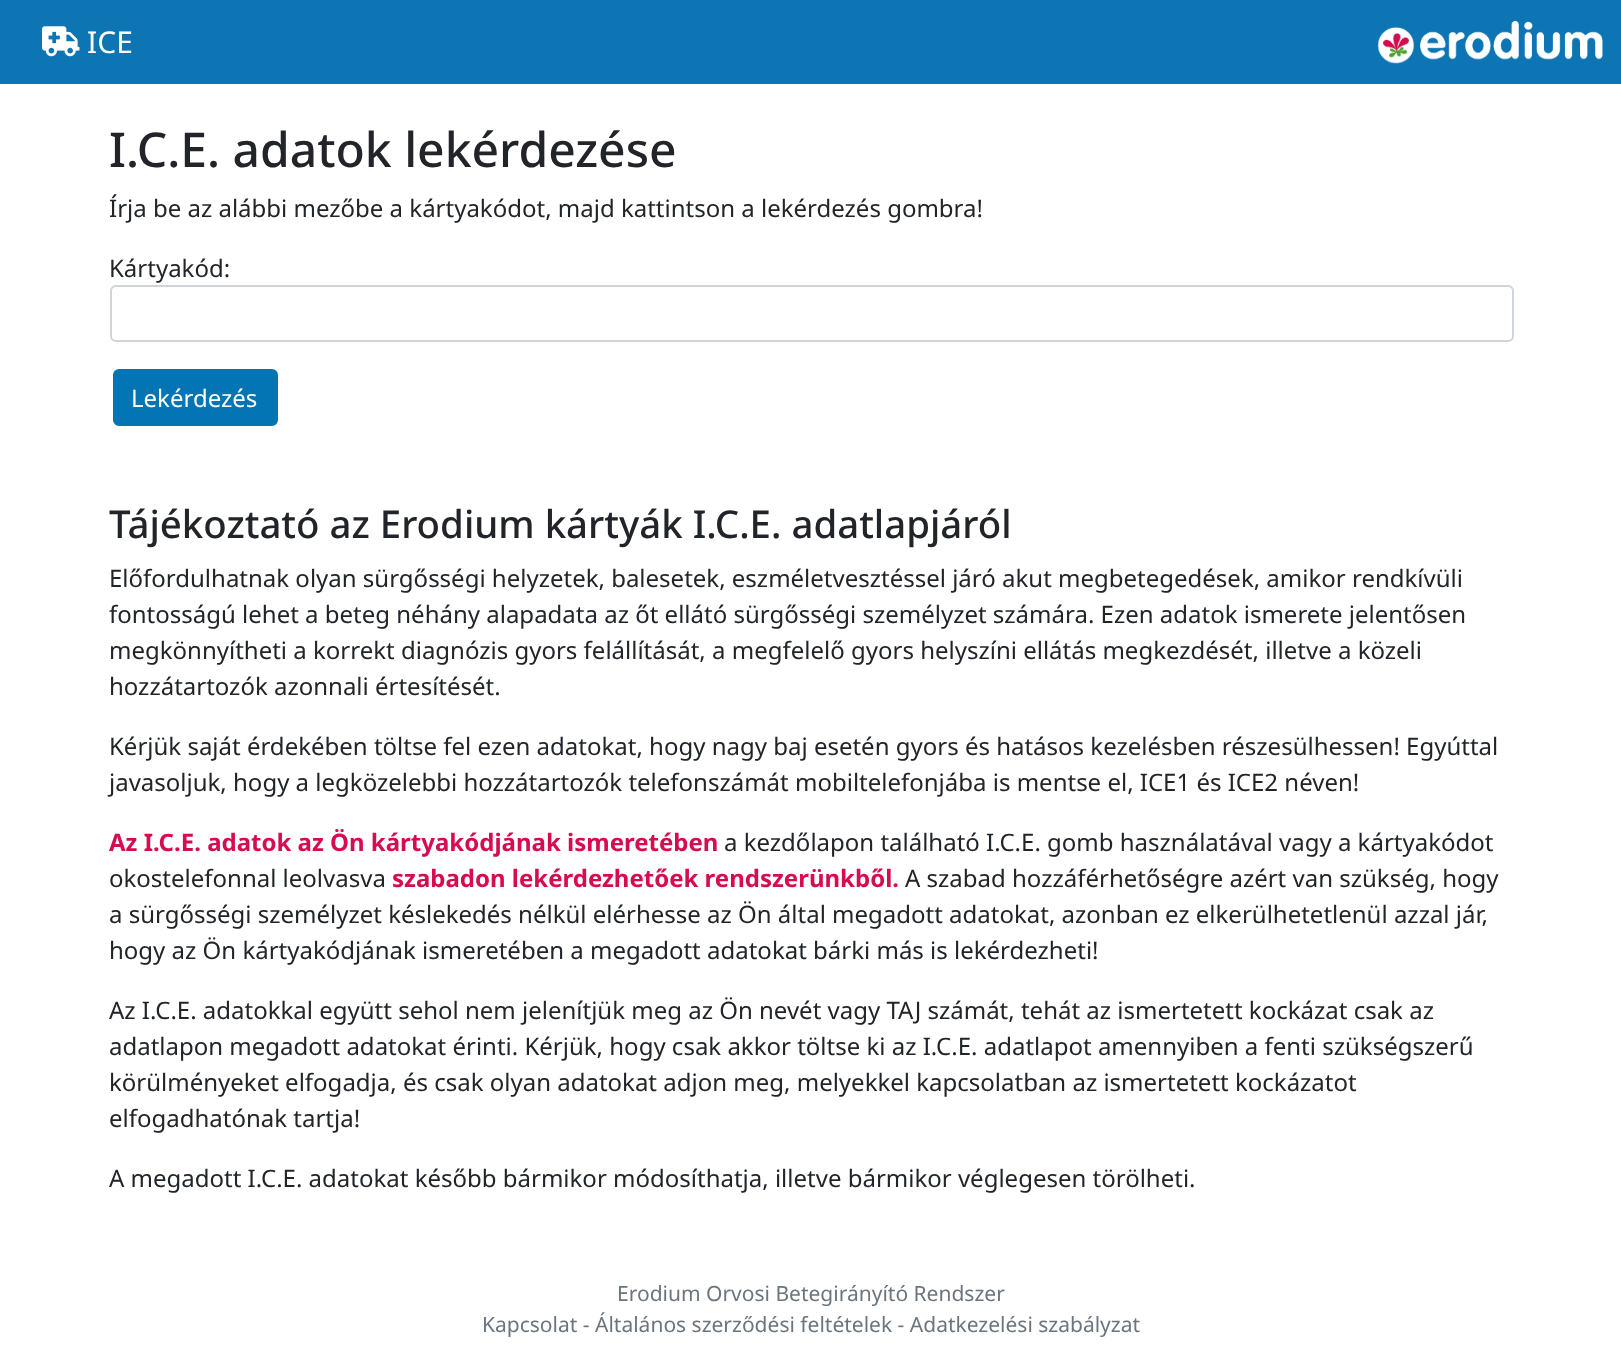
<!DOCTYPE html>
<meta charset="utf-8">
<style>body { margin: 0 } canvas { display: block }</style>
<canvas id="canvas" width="1621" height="1363"></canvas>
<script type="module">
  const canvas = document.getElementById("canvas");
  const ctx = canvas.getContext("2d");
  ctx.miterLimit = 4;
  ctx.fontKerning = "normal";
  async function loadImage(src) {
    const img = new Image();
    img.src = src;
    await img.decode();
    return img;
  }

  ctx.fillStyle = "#ffffff";
  ctx.fillRect(0, 0, 1621, 1363);
  ctx.fillStyle = "#0d75b4";
  ctx.fillRect(0, 0, 1621, 84);
  ctx.drawImage(await loadImage("img1.png"), 42, 26, 38, 31);
  ctx.font = "30px Noto Sans";
  ctx.fillStyle = "#ffffff";
  ctx.fillText("ICE", 87, 53);
  ctx.drawImage(await loadImage("img2.png"), 1377, 21, 226, 43);
  ctx.font = "500 48px Noto Sans";
  ctx.fillStyle = "#212529";
  ctx.fillText("I.C.E. adatok lekérdezése", 109, 167);
  ctx.font = "24px Noto Sans";
  ctx.fillText("Írja be az alábbi mezőbe a kártyakódot, majd kattintson a lekérdezés gombra!", 109, 217);
  ctx.fillText("Kártyakód:", 109, 277);
  ctx.beginPath();
  ctx.roundRect(111, 286, 1402, 55, 5);
  ctx.strokeStyle = "#ced4da";
  ctx.lineWidth = 2;
  ctx.stroke();
  ctx.fillStyle = "#0375b4";
  ctx.beginPath();
  ctx.roundRect(114, 370, 163, 55, 5);
  ctx.fill();
  ctx.strokeStyle = "#0375b4";
  ctx.stroke();
  ctx.fillStyle = "#ffffff";
  ctx.fillText("Lekérdezés", 131, 407);
  ctx.font = "500 38.4px Noto Sans";
  ctx.fillStyle = "#212529";
  ctx.fillText("Tájékoztató az Erodium kártyák I.C.E. adatlapjáról", 109, 538);
  ctx.font = "24px Noto Sans";
  ctx.fillText("Előfordulhatnak olyan sürgősségi helyzetek, balesetek, eszméletvesztéssel járó akut megbetegedések, amikor rendkívüli", 109, 587);
  ctx.fillText("fontosságú lehet a beteg néhány alapadata az őt ellátó sürgősségi személyzet számára. Ezen adatok ismerete jelentősen", 109, 623);
  ctx.fillText("megkönnyítheti a korrekt diagnózis gyors felállítását, a megfelelő gyors helyszíni ellátás megkezdését, illetve a közeli", 109, 659);
  ctx.fillText("hozzátartozók azonnali értesítését.", 109, 695);
  ctx.fillText("Kérjük saját érdekében töltse fel ezen adatokat, hogy nagy baj esetén gyors és hatásos kezelésben részesülhessen! Egyúttal", 109, 755);
  ctx.fillText("javasoljuk, hogy a legközelebbi hozzátartozók telefonszámát mobiltelefonjába is mentse el, ICE1 és ICE2 néven!", 109, 791);
  ctx.font = "bold 24px Noto Sans";
  ctx.fillStyle = "#d60b51";
  ctx.fillText("Az I.C.E. adatok az Ön kártyakódjának ismeretében", 109, 851);
  ctx.font = "24px Noto Sans";
  ctx.fillStyle = "#212529";
  ctx.fillText("a kezdőlapon található I.C.E. gomb használatával vagy a kártyakódot", 724, 851);
  ctx.fillText("okostelefonnal leolvasva", 109, 887);
  ctx.font = "bold 24px Noto Sans";
  ctx.fillStyle = "#d60b51";
  ctx.fillText("szabadon lekérdezhetőek rendszerünkből.", 392, 887);
  ctx.font = "24px Noto Sans";
  ctx.fillStyle = "#212529";
  ctx.fillText("A szabad hozzáférhetőségre azért van szükség, hogy", 905, 887);
  ctx.fillText("a sürgősségi személyzet késlekedés nélkül elérhesse az Ön által megadott adatokat, azonban ez elkerülhetetlenül azzal jár,", 109, 923);
  ctx.fillText("hogy az Ön kártyakódjának ismeretében a megadott adatokat bárki más is lekérdezheti!", 109, 959);
  ctx.fillText("Az I.C.E. adatokkal együtt sehol nem jelenítjük meg az Ön nevét vagy TAJ számát, tehát az ismertetett kockázat csak az", 109, 1019);
  ctx.fillText("adatlapon megadott adatokat érinti. Kérjük, hogy csak akkor töltse ki az I.C.E. adatlapot amennyiben a fenti szükségszerű", 109, 1055);
  ctx.fillText("körülményeket elfogadja, és csak olyan adatokat adjon meg, melyekkel kapcsolatban az ismertetett kockázatot", 109, 1091);
  ctx.fillText("elfogadhatónak tartja!", 109, 1127);
  ctx.fillText("A megadott I.C.E. adatokat később bármikor módosíthatja, illetve bármikor véglegesen törölheti.", 109, 1187);
  ctx.font = "21px Noto Sans";
  ctx.fillStyle = "#6c757d";
  ctx.fillText("Erodium Orvosi Betegirányító Rendszer", 617, 1301);
  ctx.fillText("Kapcsolat - Általános szerződési feltételek - Adatkezelési szabályzat", 482, 1332);
</script>
